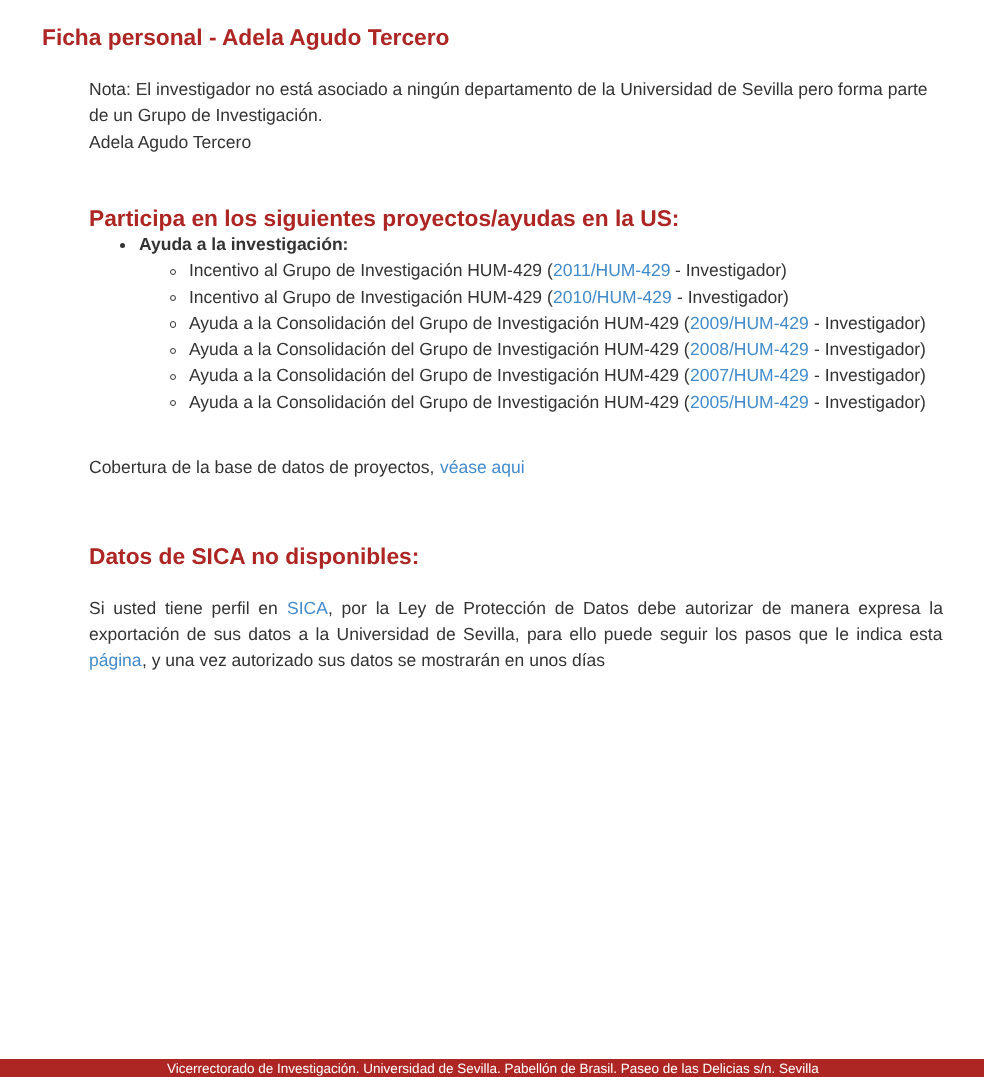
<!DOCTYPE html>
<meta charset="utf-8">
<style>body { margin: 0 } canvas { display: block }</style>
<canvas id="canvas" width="984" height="1077"></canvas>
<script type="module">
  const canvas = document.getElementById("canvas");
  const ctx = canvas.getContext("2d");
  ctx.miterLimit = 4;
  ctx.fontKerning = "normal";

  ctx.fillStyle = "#ffffff";
  ctx.fillRect(0, 0, 984, 1077);
  ctx.font = "bold 22.75px Liberation Sans";
  ctx.fillStyle = "#ad2624";
  ctx.fillText("Ficha personal - Adela Agudo Tercero", 42, 45);
  ctx.font = "17.5px Liberation Sans";
  ctx.fillStyle = "#333333";
  ctx.fillText("Nota: El investigador no está asociado a ningún departamento de la Universidad de Sevilla pero forma parte", 89, 95);
  ctx.fillText("de un Grupo de Investigación.", 89, 121);
  ctx.fillText("Adela Agudo Tercero", 89, 148);
  ctx.font = "bold 22.75px Liberation Sans";
  ctx.fillStyle = "#ad2624";
  ctx.fillText("Participa en los siguientes proyectos/ayudas en la US:", 89, 226);
  ctx.fillStyle = "#333333";
  ctx.beginPath();
  ctx.arc(122.5, 245.5, 2.5, 0, Math.PI * 2);
  ctx.fill();
  ctx.font = "bold 17.5px Liberation Sans";
  ctx.fillText("Ayuda a la investigación:", 139, 250);
  ctx.beginPath();
  ctx.arc(173, 272, 2.5, 0, Math.PI * 2);
  ctx.strokeStyle = "#333333";
  ctx.stroke();
  ctx.font = "17.5px Liberation Sans";
  ctx.fillText("Incentivo al Grupo de Investigación HUM-429 (", 189, 276);
  ctx.fillStyle = "#428bca";
  ctx.fillText("2011/HUM-429", 553, 276);
  ctx.fillStyle = "#333333";
  ctx.fillText("- Investigador)", 675, 276);
  ctx.beginPath();
  ctx.arc(173, 298, 2.5, 0, Math.PI * 2);
  ctx.stroke();
  ctx.fillText("Incentivo al Grupo de Investigación HUM-429 (", 189, 303);
  ctx.fillStyle = "#428bca";
  ctx.fillText("2010/HUM-429", 553, 303);
  ctx.fillStyle = "#333333";
  ctx.fillText("- Investigador)", 677, 303);
  ctx.beginPath();
  ctx.roundRect(170.5, 321.5, 5, 6, 2.5);
  ctx.stroke();
  ctx.fillText("Ayuda a la Consolidación del Grupo de Investigación HUM-429 (", 189, 329);
  ctx.fillStyle = "#428bca";
  ctx.fillText("2009/HUM-429", 690, 329);
  ctx.fillStyle = "#333333";
  ctx.fillText("- Investigador)", 814, 329);
  ctx.beginPath();
  ctx.arc(173, 351, 2.5, 0, Math.PI * 2);
  ctx.stroke();
  ctx.fillText("Ayuda a la Consolidación del Grupo de Investigación HUM-429 (", 189, 355);
  ctx.fillStyle = "#428bca";
  ctx.fillText("2008/HUM-429", 690, 355);
  ctx.fillStyle = "#333333";
  ctx.fillText("- Investigador)", 814, 355);
  ctx.beginPath();
  ctx.arc(173, 377, 2.5, 0, Math.PI * 2);
  ctx.stroke();
  ctx.fillText("Ayuda a la Consolidación del Grupo de Investigación HUM-429 (", 189, 381);
  ctx.fillStyle = "#428bca";
  ctx.fillText("2007/HUM-429", 690, 381);
  ctx.fillStyle = "#333333";
  ctx.fillText("- Investigador)", 814, 381);
  ctx.beginPath();
  ctx.arc(173, 403, 2.5, 0, Math.PI * 2);
  ctx.stroke();
  ctx.fillText("Ayuda a la Consolidación del Grupo de Investigación HUM-429 (", 189, 408);
  ctx.fillStyle = "#428bca";
  ctx.fillText("2005/HUM-429", 690, 408);
  ctx.fillStyle = "#333333";
  ctx.fillText("- Investigador)", 814, 408);
  ctx.fillText("Cobertura de la base de datos de proyectos,", 89, 473);
  ctx.fillStyle = "#428bca";
  ctx.fillText("véase aqui", 440, 473);
  ctx.font = "bold 22.75px Liberation Sans";
  ctx.fillStyle = "#ad2624";
  ctx.fillText("Datos de SICA no disponibles:", 89, 564);
  ctx.wordSpacing = "3.9px";
  ctx.font = "17.5px Liberation Sans";
  ctx.fillStyle = "#333333";
  ctx.fillText("Si usted tiene perfil en", 89, 614);
  ctx.wordSpacing = "0px";
  ctx.fillStyle = "#428bca";
  ctx.fillText("SICA", 287, 614);
  ctx.wordSpacing = "3.9px";
  ctx.fillStyle = "#333333";
  ctx.fillText(", por la Ley de Protección de Datos debe autorizar de manera expresa la", 328, 614);
  ctx.wordSpacing = "2.5px";
  ctx.fillText("exportación de sus datos a la Universidad de Sevilla, para ello puede seguir los pasos que le indica esta", 89, 640);
  ctx.wordSpacing = "0px";
  ctx.fillStyle = "#428bca";
  ctx.fillText("página", 89, 666);
  ctx.fillStyle = "#333333";
  ctx.fillText(", y una vez autorizado sus datos se mostrarán en unos días", 142, 666);
  ctx.fillStyle = "#ad2624";
  ctx.fillRect(0, 1059, 984, 18);
  ctx.font = "13.5px Liberation Sans";
  ctx.fillStyle = "#ffffff";
  ctx.fillText("Vicerrectorado de Investigación. Universidad de Sevilla. Pabellón de Brasil. Paseo de las Delicias s/n. Sevilla", 167, 1073);
</script>
